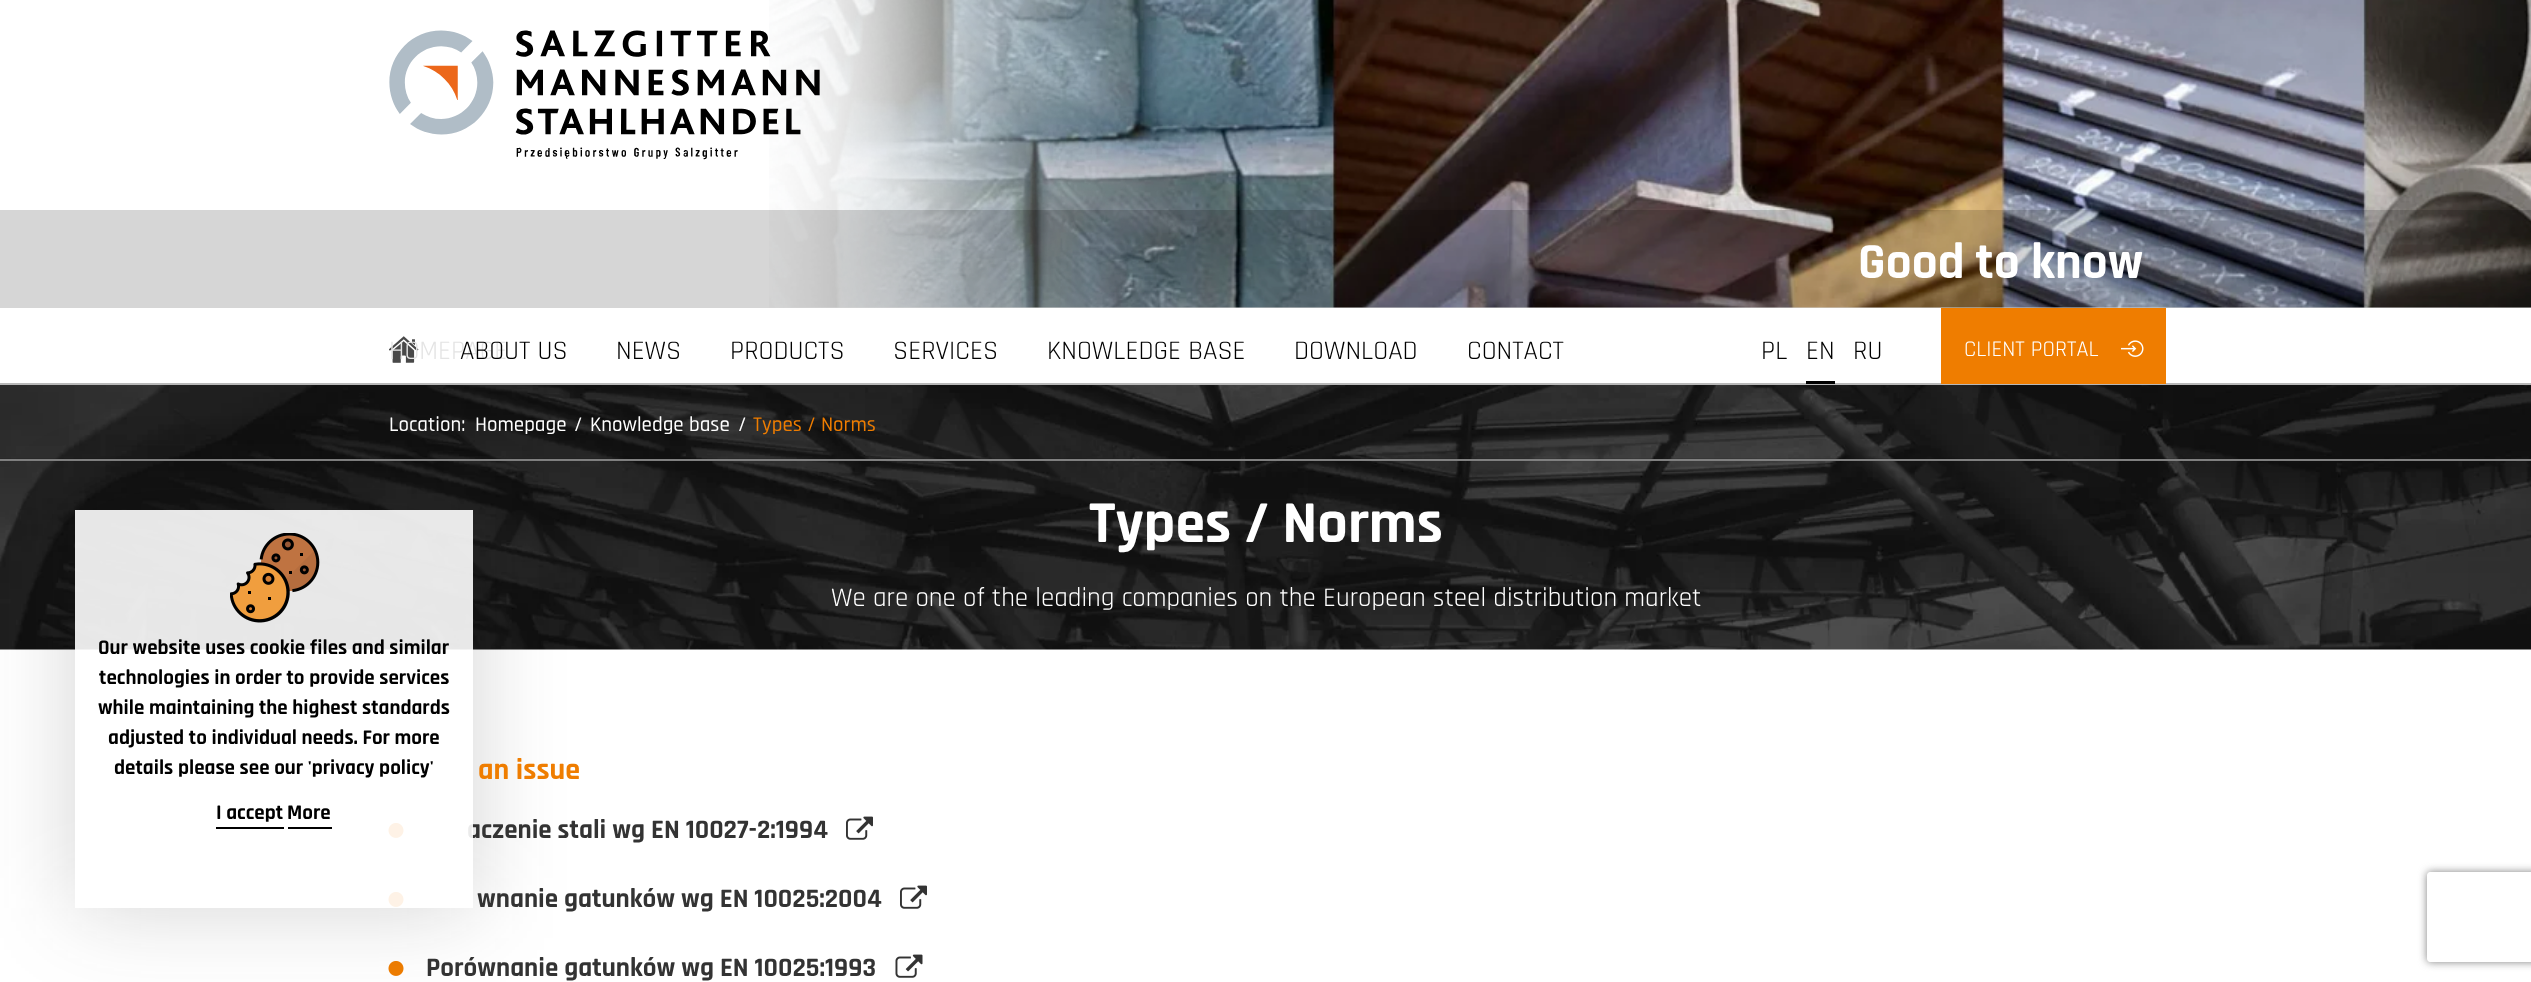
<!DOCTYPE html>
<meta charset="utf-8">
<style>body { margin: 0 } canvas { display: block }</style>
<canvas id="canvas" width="2531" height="982"></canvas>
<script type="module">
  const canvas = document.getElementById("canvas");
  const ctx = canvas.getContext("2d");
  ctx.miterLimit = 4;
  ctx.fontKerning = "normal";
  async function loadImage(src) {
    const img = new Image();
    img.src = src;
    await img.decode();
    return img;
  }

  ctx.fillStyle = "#ffffff";
  ctx.fillRect(0, 0, 2531, 982);
  ctx.drawImage(await loadImage("img1.png"), 769, 0, 1762, 308);
  ctx.drawImage(await loadImage("img2.png"), 389, 30, 431, 130);
  ctx.fillStyle = "rgba(0, 0, 0, 0.16)";
  ctx.fillRect(0, 210, 2531, 98);
  ctx.font = "bold 51px Rajdhani";
  ctx.fillStyle = "#ffffff";
  ctx.fillText("Good to know", 1858, 278);
  ctx.fillStyle = "#b8b8b8";
  ctx.fillRect(0, 383, 2531, 2);
  ctx.drawImage(await loadImage("img3.png"), 389, 336, 30, 27);
  ctx.font = "27px Rajdhani";
  ctx.fillStyle = "#e4e4e4";
  ctx.fillText("HOMEPAGE", 389, 359);
  ctx.fillStyle = "#000000";
  ctx.fillText("ABOUT US", 460, 359);
  ctx.fillText("NEWS", 616, 359);
  ctx.fillText("PRODUCTS", 730, 359);
  ctx.fillText("SERVICES", 893, 359);
  ctx.fillText("KNOWLEDGE BASE", 1047, 359);
  ctx.fillText("DOWNLOAD", 1294, 359);
  ctx.fillText("CONTACT", 1467, 359);
  ctx.fillText("PL", 1761, 359);
  ctx.fillText("EN", 1806, 359);
  ctx.fillRect(1806, 381, 29, 3);
  ctx.fillText("RU", 1853, 359);
  ctx.fillStyle = "#ef7d00";
  ctx.fillRect(1941, 308, 225, 76);
  ctx.font = "22.5px Rajdhani";
  ctx.fillStyle = "#ffffff";
  ctx.fillText("CLIENT PORTAL", 1964, 356);
  ctx.drawImage(await loadImage("img4.png"), 2121, 340, 23, 17);
  ctx.drawImage(await loadImage("img5.png"), 0, 385, 2531, 265);
  ctx.font = "500 21px Rajdhani";
  ctx.fillText("Location:", 389, 431);
  ctx.fillText("Homepage", 475, 431);
  ctx.fillText("/", 574, 431);
  ctx.fillText("Knowledge base", 590, 431);
  ctx.fillText("/", 738, 431);
  ctx.fillStyle = "#ef7d00";
  ctx.fillText("Types / Norms", 753, 431);
  ctx.fillStyle = "rgba(0, 0, 0, 0.1)";
  ctx.fillRect(0, 458, 2232, 1);
  ctx.fillStyle = "#808080";
  ctx.fillRect(0, 459, 2531, 2);
  ctx.font = "bold 60px Rajdhani";
  ctx.fillStyle = "#ffffff";
  ctx.fillText("Types / Norms", 1089, 542);
  ctx.font = "27px Rajdhani";
  ctx.fillText("We are one of the leading companies on the European steel distribution market", 831, 606);
  ctx.drawImage(await loadImage("img7.png"), 388, 823, 16, 15);
  ctx.drawImage(await loadImage("img7.png"), 388, 892, 16, 15);
  ctx.drawImage(await loadImage("img7.png"), 388, 961, 16, 15);
  ctx.save();
  ctx.beginPath();
  ctx.moveTo(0, 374);
  ctx.lineTo(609, 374);
  ctx.lineTo(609, 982);
  ctx.lineTo(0, 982);
  ctx.closePath();
  ctx.moveTo(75, 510);
  ctx.lineTo(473, 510);
  ctx.lineTo(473, 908);
  ctx.lineTo(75, 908);
  ctx.closePath();
  ctx.clip("evenodd");
  ctx.fillStyle = "rgba(40, 40, 40, 0.2)";
  ctx.filter = "blur(45px)";
  ctx.beginPath();
  ctx.rect(75, 510, 398, 398);
  ctx.fill();
  ctx.filter = "none";
  ctx.restore();
  ctx.font = "bold 27px Rajdhani";
  ctx.fillStyle = "#333333";
  ctx.fillText("aczenie stali wg EN 10027-2:1994", 467, 838);
  ctx.fillStyle = "rgba(255, 255, 255, 0.9)";
  ctx.fillRect(75, 510, 398, 398);
  ctx.drawImage(await loadImage("img6.png"), 230, 533, 90, 90);
  ctx.font = "bold 21px Rajdhani";
  ctx.fillStyle = "#000000";
  ctx.fillText("Our website uses cookie files and similar", 98, 654);
  ctx.fillText("technologies in order to provide services", 99, 684);
  ctx.fillText("while maintaining the highest standards", 98, 714);
  ctx.fillText("adjusted to individual needs. For more", 108, 744);
  ctx.fillText("details please see our 'privacy policy'", 114, 774);
  ctx.fillText("I accept", 216, 819);
  ctx.fillRect(216, 827, 68, 2);
  ctx.fillText("More", 287, 819);
  ctx.fillRect(288, 827, 44, 2);
  ctx.font = "bold 30px Rajdhani";
  ctx.fillStyle = "#ef7d00";
  ctx.fillText("an issue", 478, 779);
  ctx.drawImage(await loadImage("img8.png"), 846, 816, 27, 24);
  ctx.font = "bold 27px Rajdhani";
  ctx.fillStyle = "#333333";
  ctx.fillText("wnanie gatunków wg EN 10025:2004", 477, 907);
  ctx.drawImage(await loadImage("img8.png"), 900, 885, 27, 24);
  ctx.fillText("Porównanie gatunków wg EN 10025:1993", 426, 976);
  ctx.drawImage(await loadImage("img9.png"), 895, 954, 28, 24);
  ctx.save();
  ctx.beginPath();
  ctx.moveTo(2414, 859);
  ctx.lineTo(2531, 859);
  ctx.lineTo(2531, 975);
  ctx.lineTo(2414, 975);
  ctx.closePath();
  ctx.moveTo(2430, 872);
  ctx.lineTo(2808, 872);
  ctx.bezierCurveTo(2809.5, 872, 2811, 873.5, 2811, 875);
  ctx.lineTo(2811, 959);
  ctx.bezierCurveTo(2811, 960.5, 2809.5, 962, 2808, 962);
  ctx.lineTo(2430, 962);
  ctx.bezierCurveTo(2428.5, 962, 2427, 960.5, 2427, 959);
  ctx.lineTo(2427, 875);
  ctx.bezierCurveTo(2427, 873.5, 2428.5, 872, 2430, 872);
  ctx.closePath();
  ctx.clip("evenodd");
  ctx.fillStyle = "#808080";
  ctx.filter = "blur(4px)";
  ctx.beginPath();
  ctx.roundRect(2427, 872, 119, 90, 3);
  ctx.fill();
  ctx.filter = "none";
  ctx.restore();
</script>
